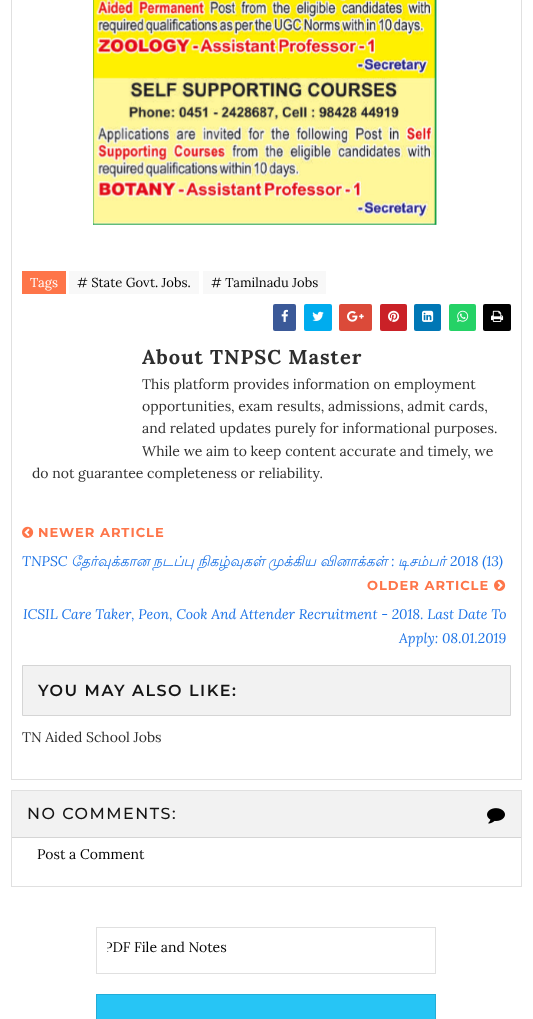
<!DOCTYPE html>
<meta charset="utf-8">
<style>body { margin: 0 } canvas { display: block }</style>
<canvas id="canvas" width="533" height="1019"></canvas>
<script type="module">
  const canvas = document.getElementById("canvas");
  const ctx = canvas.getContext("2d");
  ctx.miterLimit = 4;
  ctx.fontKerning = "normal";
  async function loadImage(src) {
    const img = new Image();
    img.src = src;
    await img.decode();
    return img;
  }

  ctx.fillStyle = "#ffffff";
  ctx.fillRect(0, 0, 533, 1019);
  ctx.strokeStyle = "#e0e0e0";
  ctx.strokeRect(11.5, -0.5, 510, 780);
  ctx.drawImage(await loadImage("img1.png"), 93, 0, 346, 225);
  ctx.fillStyle = "#fe7549";
  ctx.fillRect(22, 271, 44, 23);
  ctx.font = "13px Lora";
  ctx.fillStyle = "#ffffff";
  ctx.fillText("Tags", 30, 287);
  ctx.fillStyle = "#f8f8f8";
  ctx.fillRect(69, 271, 130, 23);
  ctx.fillStyle = "#000000";
  ctx.fillText("# State Govt. Jobs.", 77, 287);
  ctx.fillStyle = "#f8f8f8";
  ctx.fillRect(203, 271, 123, 23);
  ctx.fillStyle = "#000000";
  ctx.fillText("# Tamilnadu Jobs", 211, 287);
  ctx.fillStyle = "#3b5998";
  ctx.beginPath();
  ctx.roundRect(273, 304, 23, 27, 2);
  ctx.fill();
  ctx.drawImage(await loadImage("img2.png"), 281, 309, 7, 13);
  ctx.fillStyle = "#00acee";
  ctx.beginPath();
  ctx.roundRect(304, 304, 28, 27, 2);
  ctx.fill();
  ctx.drawImage(await loadImage("img3.png"), 312, 311, 12, 10);
  ctx.fillStyle = "#db4a39";
  ctx.beginPath();
  ctx.roundRect(339, 304, 33, 27, 2);
  ctx.fill();
  ctx.drawImage(await loadImage("img4.png"), 347, 311, 17, 11);
  ctx.fillStyle = "#ca2127";
  ctx.beginPath();
  ctx.roundRect(380, 304, 27, 27, 2);
  ctx.fill();
  ctx.drawImage(await loadImage("img5.png"), 388, 310, 12, 12);
  ctx.fillStyle = "#0077b5";
  ctx.beginPath();
  ctx.roundRect(414, 304, 27, 27, 2);
  ctx.fill();
  ctx.drawImage(await loadImage("img6.png"), 422, 310, 12, 12);
  ctx.fillStyle = "#25d266";
  ctx.beginPath();
  ctx.roundRect(449, 304, 27, 27, 2);
  ctx.fill();
  ctx.drawImage(await loadImage("img7.png"), 457, 310, 12, 12);
  ctx.fillStyle = "#010101";
  ctx.beginPath();
  ctx.roundRect(483, 304, 28, 27, 2);
  ctx.fill();
  ctx.drawImage(await loadImage("img8.png"), 491, 310, 13, 12);
  ctx.letterSpacing = "1px";
  ctx.font = "bold 20px Lora";
  ctx.fillStyle = "#2e2e2e";
  ctx.fillText("About TNPSC Master", 142, 364);
  ctx.letterSpacing = "0px";
  ctx.font = "14px Lora";
  ctx.fillText("This platform provides information on employment", 142, 389);
  ctx.fillText("opportunities, exam results, admissions, admit cards,", 142, 411);
  ctx.fillText("and related updates purely for informational purposes.", 142, 433);
  ctx.fillText("While we aim to keep content accurate and timely, we", 142, 456);
  ctx.fillText("do not guarantee completeness or reliability.", 32, 478);
  ctx.drawImage(await loadImage("img9.png"), 22, 526, 12, 12);
  ctx.letterSpacing = "1px";
  ctx.font = "bold 13px Montserrat";
  ctx.fillStyle = "#fe7549";
  ctx.fillText("NEWER ARTICLE", 38, 537);
  ctx.letterSpacing = "0px";
  ctx.font = "italic 14px Lora";
  ctx.fillStyle = "#1e74e6";
  ctx.fillText("TNPSC", 22, 566);
  ctx.font = "italic 14px Lohit Tamil";
  ctx.fillText("தேர்வுக்கான", 71, 566);
  ctx.fillText("நடப்பு", 153, 566);
  ctx.fillText("நிகழ்வுகள்", 198, 566);
  ctx.fillText("முக்கிய", 268, 566);
  ctx.fillText("வினாக்கள்", 320, 566);
  ctx.font = "italic 14px Lora";
  ctx.fillText(":", 391, 566);
  ctx.font = "italic 14px Lohit Tamil";
  ctx.fillText("டிசம்பர்", 398, 566);
  ctx.font = "italic 14px Lora";
  ctx.fillText("2018 (13)", 450, 566);
  ctx.letterSpacing = "1px";
  ctx.font = "bold 13px Montserrat";
  ctx.fillStyle = "#fe7549";
  ctx.fillText("OLDER ARTICLE", 367, 590);
  ctx.drawImage(await loadImage("img10.png"), 494, 579, 12, 12);
  ctx.letterSpacing = "0px";
  ctx.font = "italic 14px Lora";
  ctx.fillStyle = "#1e74e6";
  ctx.fillText("ICSIL Care Taker, Peon, Cook And Attender Recruitment - 2018. Last Date To", 23, 619);
  ctx.fillText("Apply: 08.01.2019", 399, 643);
  ctx.fillStyle = "#f2f2f2";
  ctx.beginPath();
  ctx.rect(22.5, 665.5, 488, 50);
  ctx.fill();
  ctx.strokeStyle = "#d5d5d5";
  ctx.stroke();
  ctx.letterSpacing = "1.5px";
  ctx.font = "600 16px Montserrat";
  ctx.fillStyle = "#151515";
  ctx.fillText("YOU MAY ALSO LIKE:", 38, 696);
  ctx.letterSpacing = "0px";
  ctx.font = "14px Lora";
  ctx.fillStyle = "#2e2e2e";
  ctx.fillText("TN Aided School Jobs", 22, 742);
  ctx.strokeStyle = "#e0e0e0";
  ctx.strokeRect(11.5, 790.5, 510, 96);
  ctx.fillStyle = "#f2f2f2";
  ctx.fillRect(12, 791, 509, 46);
  ctx.fillStyle = "#d5d5d5";
  ctx.fillRect(12, 837, 509, 1);
  ctx.letterSpacing = "1.5px";
  ctx.font = "500 16px Montserrat";
  ctx.fillStyle = "#151515";
  ctx.fillText("NO COMMENTS:", 27, 819);
  ctx.drawImage(await loadImage("img11.png"), 487, 808, 18, 16);
  ctx.letterSpacing = "0px";
  ctx.font = "14px Lora";
  ctx.fillStyle = "#000000";
  ctx.fillText("Post a Comment", 37, 859);
  ctx.strokeRect(96.5, 927.5, 339, 46);
  ctx.save();
  ctx.beginPath();
  ctx.rect(107, 938, 318, 19);
  ctx.clip();
  ctx.fillText("PDF File and Notes", 104, 952);
  ctx.restore();
  ctx.fillStyle = "#27c5f5";
  ctx.fillRect(96, 994, 340, 25);
  ctx.fillStyle = "#22add8";
  ctx.beginPath();
  ctx.moveTo(96, 994);
  ctx.lineTo(436, 994);
  ctx.lineTo(435, 995);
  ctx.lineTo(97, 995);
  ctx.closePath();
  ctx.fill();
  ctx.fillStyle = "rgba(0, 0, 0, 0.12)";
  ctx.beginPath();
  ctx.moveTo(436, 994);
  ctx.lineTo(436, 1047);
  ctx.lineTo(435, 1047);
  ctx.lineTo(435, 995);
  ctx.closePath();
  ctx.fill();
  ctx.beginPath();
  ctx.moveTo(96, 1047);
  ctx.lineTo(96, 994);
  ctx.lineTo(97, 995);
  ctx.lineTo(97, 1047);
  ctx.closePath();
  ctx.fill();
</script>
